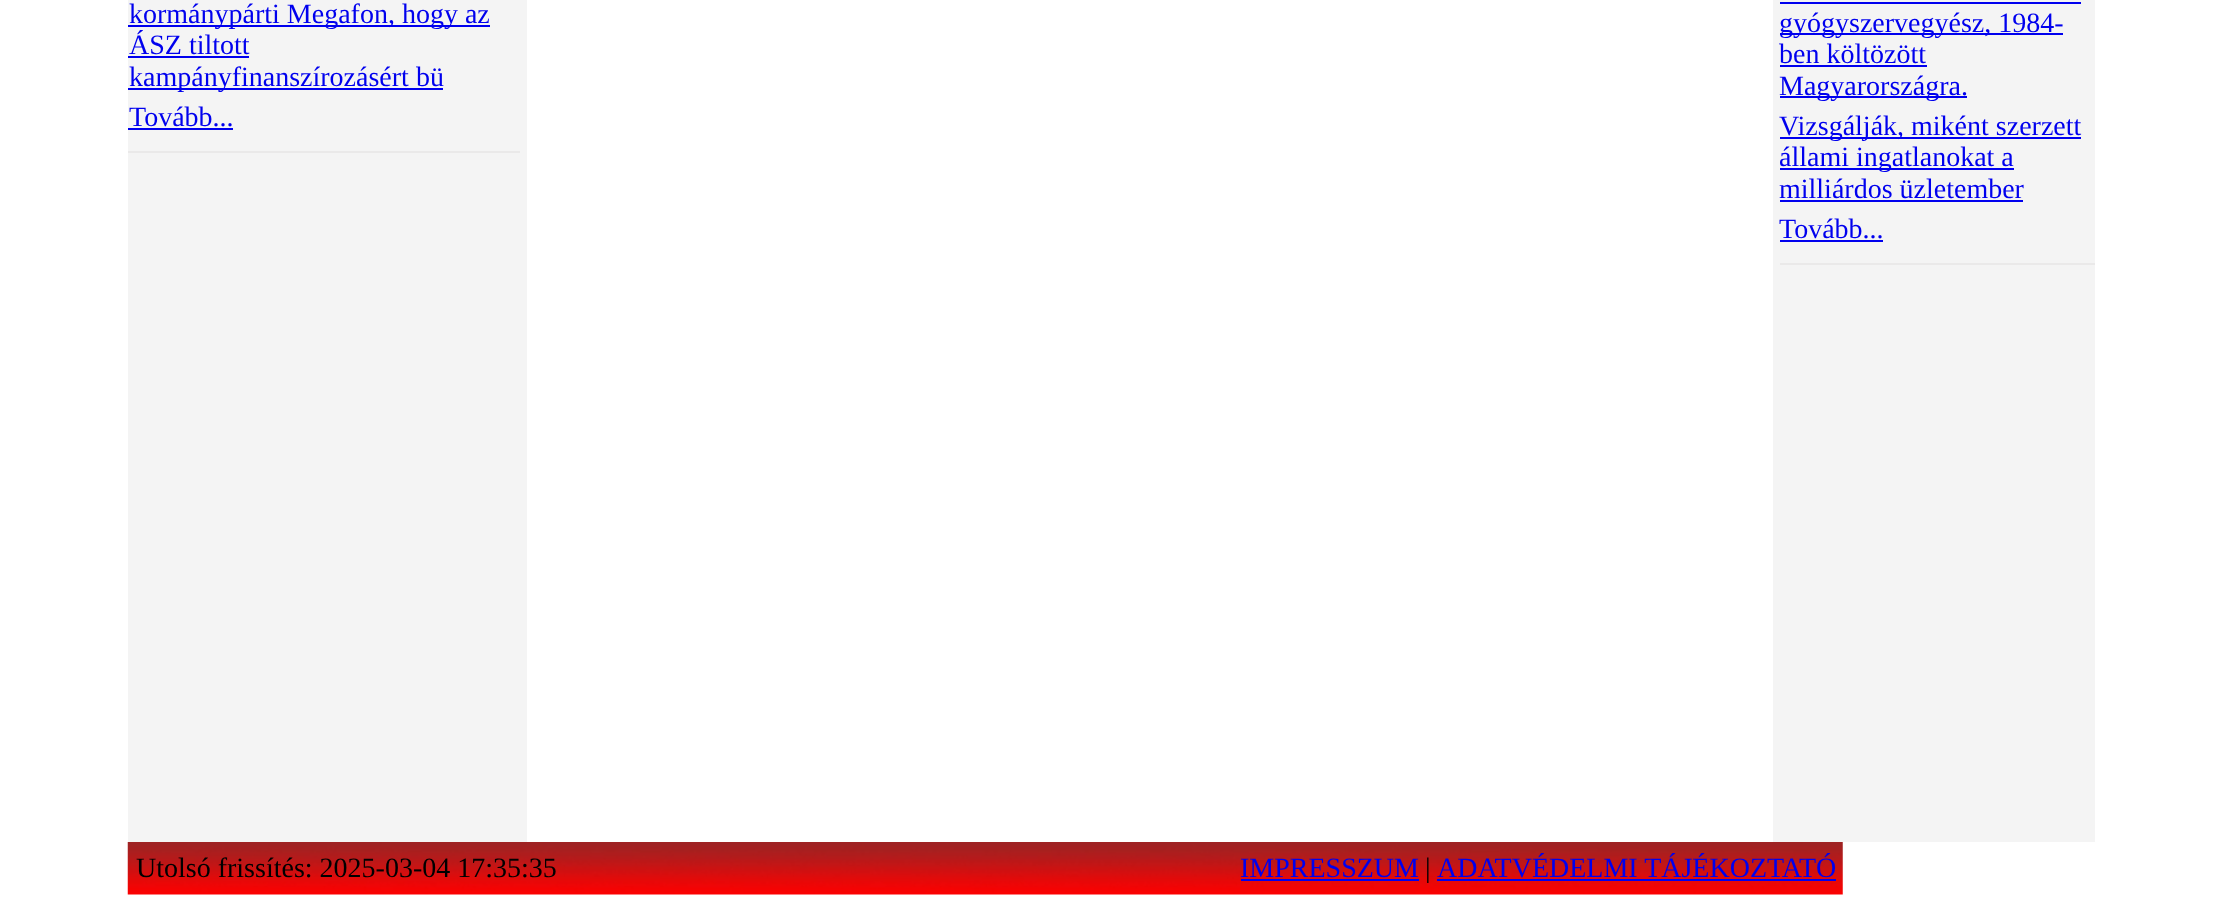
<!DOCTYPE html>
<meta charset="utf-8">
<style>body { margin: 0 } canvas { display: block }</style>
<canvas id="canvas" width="2222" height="908"></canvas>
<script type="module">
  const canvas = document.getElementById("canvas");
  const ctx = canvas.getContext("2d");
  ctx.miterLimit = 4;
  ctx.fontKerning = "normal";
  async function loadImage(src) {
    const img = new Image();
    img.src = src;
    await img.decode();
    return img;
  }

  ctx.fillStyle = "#ffffff";
  ctx.fillRect(0, 0, 2222, 908);
  ctx.fillStyle = "#f4f4f4";
  ctx.fillRect(128, 0, 399, 842);
  ctx.fillStyle = "#eae9e9";
  ctx.fillRect(128, 151, 392, 2);
  ctx.fillStyle = "#0000ee";
  ctx.fillRect(128, 25, 362, 2);
  ctx.font = "28px Liberation Serif";
  ctx.fillText("kormánypárti Megafon, hogy az", 129, 23);
  ctx.fillText("ÁSZ tiltott", 129, 54);
  ctx.fillRect(128, 56, 121, 2);
  ctx.fillRect(128, 88, 315, 2);
  ctx.fillText("kampányfinanszírozásért bü", 129, 86);
  ctx.fillText("Tovább...", 129, 126);
  ctx.fillRect(128, 128, 105, 2);
  ctx.fillStyle = "#f4f4f4";
  ctx.fillRect(1773, 0, 322, 842);
  ctx.fillStyle = "#eae9e9";
  ctx.fillRect(1780, 263, 315, 2);
  ctx.fillStyle = "#0000ee";
  ctx.fillRect(1780, 33, 283, 2);
  ctx.fillText("gyógyszervegyész, 1984-", 1779, 32);
  ctx.fillRect(1780, 2, 301, 2);
  ctx.fillText("ben költözött", 1779, 63);
  ctx.fillRect(1780, 65, 147, 2);
  ctx.fillRect(1780, 96, 187, 2);
  ctx.fillText("Magyarországra.", 1779, 95);
  ctx.fillRect(1780, 137, 301, 2);
  ctx.fillText("Vizsgálják, miként szerzett", 1779, 135);
  ctx.fillRect(1780, 168, 234, 2);
  ctx.fillText("állami ingatlanokat a", 1779, 166);
  ctx.fillText("milliárdos üzletember", 1779, 198);
  ctx.fillRect(1780, 200, 243, 2);
  ctx.fillText("Tovább...", 1779, 238);
  ctx.fillRect(1780, 240, 103, 2);
  ctx.drawImage(await loadImage("img1.png"), 127, 842, 1716, 53);
  ctx.fillStyle = "#000000";
  ctx.fillText("Utolsó frissítés: 2025-03-04 17:35:35", 136, 877);
  ctx.fillStyle = "#0000ee";
  ctx.fillText("IMPRESSZUM", 1240, 877);
  ctx.fillRect(1241, 879, 178, 2);
  ctx.fillStyle = "#000000";
  ctx.fillText("|", 1425, 877);
  ctx.fillStyle = "#0000ee";
  ctx.fillText("ADATVÉDELMI TÁJÉKOZTATÓ", 1437, 877);
  ctx.fillRect(1437, 879, 399, 2);
</script>
